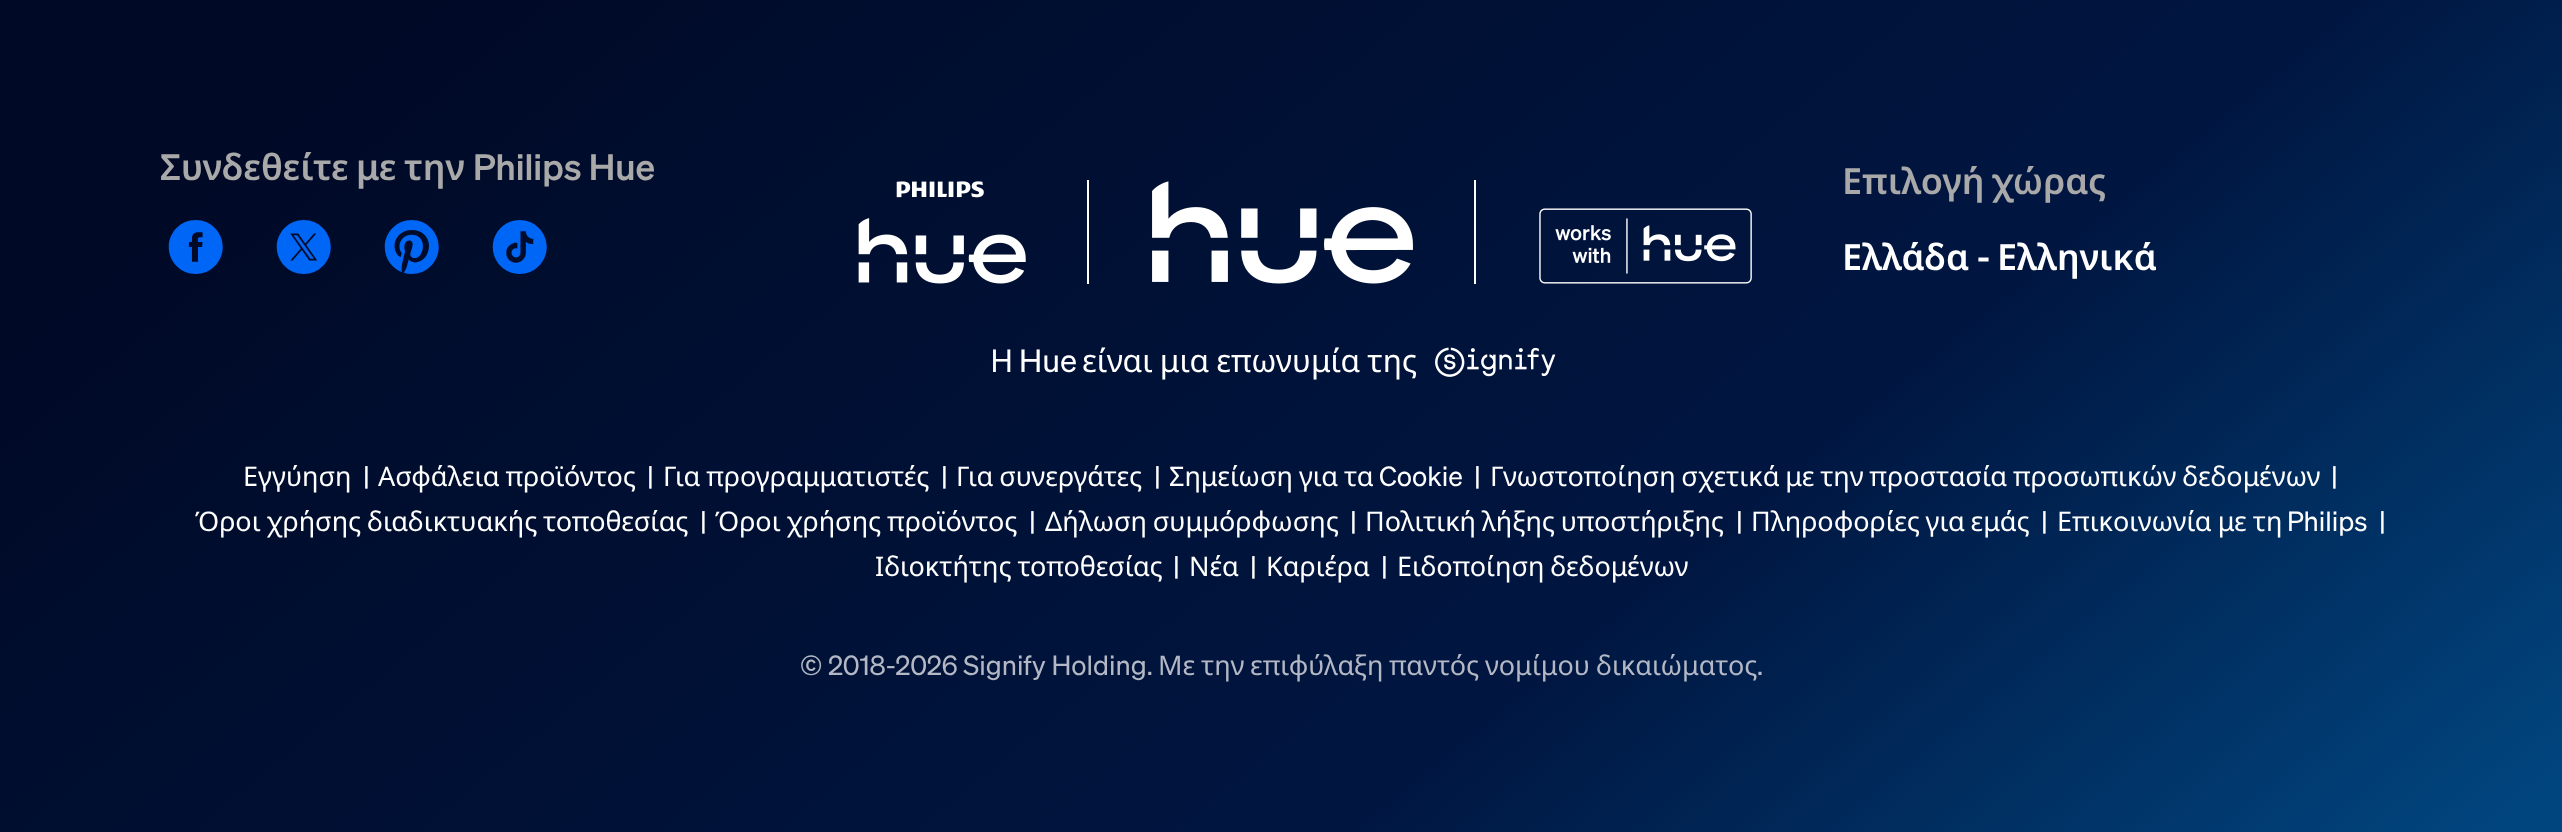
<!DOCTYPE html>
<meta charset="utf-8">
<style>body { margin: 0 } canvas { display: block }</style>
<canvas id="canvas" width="2562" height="832"></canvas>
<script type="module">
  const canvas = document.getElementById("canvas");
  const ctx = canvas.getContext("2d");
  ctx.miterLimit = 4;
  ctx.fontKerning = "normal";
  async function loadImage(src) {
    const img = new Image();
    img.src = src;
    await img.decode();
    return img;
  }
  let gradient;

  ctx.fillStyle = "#ffffff";
  ctx.fillRect(0, 0, 2562, 832);
  gradient = ctx.createLinearGradient(2003, 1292, 560, -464);
  gradient.addColorStop(0.02, "#01457e");
  gradient.addColorStop(0.34, "#001641");
  gradient.addColorStop(0.92, "#000925");
  ctx.fillStyle = gradient;
  ctx.fillRect(0, 0, 2562, 832);
  ctx.font = "600 36px Noto Sans";
  ctx.fillStyle = "#a9a9a9";
  ctx.fillText("Συνδεθείτε", 160, 180);
  ctx.fillText("με", 356, 180);
  ctx.fillText("την", 404, 180);
  ctx.font = "500 36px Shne";
  ctx.fillText("Philips Hue", 473, 180);
  ctx.drawImage(await loadImage("img1.png"), 168, 220, 55, 54);
  ctx.drawImage(await loadImage("img2.png"), 276, 220, 55, 54);
  ctx.drawImage(await loadImage("img3.png"), 384, 220, 55, 54);
  ctx.drawImage(await loadImage("img4.png"), 492, 220, 55, 54);
  ctx.drawImage(await loadImage("img5.png"), 858, 181, 168, 103);
  ctx.fillStyle = "#ffffff";
  ctx.fillRect(1087, 180, 2, 104);
  ctx.drawImage(await loadImage("img6.png"), 1152, 181, 261, 103);
  ctx.fillRect(1474, 180, 2, 104);
  ctx.drawImage(await loadImage("img7.png"), 1539, 208, 213, 76);
  ctx.wordSpacing = "-2px";
  ctx.font = "600 36px Noto Sans";
  ctx.fillStyle = "#a9a9a9";
  ctx.fillText("Επιλογή χώρας", 1842, 194);
  ctx.wordSpacing = "0px";
  ctx.fillStyle = "#ffffff";
  ctx.fillText("Ελλάδα", 1842, 270);
  ctx.font = "500 36px Shne";
  ctx.fillText("-", 1977, 270);
  ctx.font = "600 36px Noto Sans";
  ctx.fillText("Ελληνικά", 1997, 270);
  ctx.font = "31.5px Noto Sans";
  ctx.fillText("Η", 990, 372);
  ctx.font = "31.5px Shne";
  ctx.fillText("Hue", 1019, 372);
  ctx.wordSpacing = "-1px";
  ctx.font = "31.5px Noto Sans";
  ctx.fillText("είναι μια επωνυμία της", 1082, 372);
  ctx.drawImage(await loadImage("img8.png"), 1435, 347, 121, 30);
  ctx.wordSpacing = "0px";
  ctx.font = "27px Noto Sans";
  ctx.fillText("Εγγύηση", 243, 486);
  ctx.font = "27px Shne";
  ctx.fillText("|", 363, 486);
  ctx.wordSpacing = "-1.25px";
  ctx.font = "27px Noto Sans";
  ctx.fillText("Ασφάλεια προϊόντος", 378, 486);
  ctx.wordSpacing = "0px";
  ctx.font = "27px Shne";
  ctx.fillText("|", 647, 486);
  ctx.wordSpacing = "-1.25px";
  ctx.font = "27px Noto Sans";
  ctx.fillText("Για προγραμματιστές", 663, 486);
  ctx.wordSpacing = "0px";
  ctx.font = "27px Shne";
  ctx.fillText("|", 941, 486);
  ctx.wordSpacing = "-1.25px";
  ctx.font = "27px Noto Sans";
  ctx.fillText("Για συνεργάτες", 956, 486);
  ctx.wordSpacing = "0px";
  ctx.font = "27px Shne";
  ctx.fillText("|", 1154, 486);
  ctx.wordSpacing = "-1px";
  ctx.font = "27px Noto Sans";
  ctx.fillText("Σημείωση για τα", 1169, 486);
  ctx.wordSpacing = "0px";
  ctx.font = "27px Shne";
  ctx.fillText("Cookie", 1379, 486);
  ctx.fillText("|", 1474, 486);
  ctx.wordSpacing = "-1.25px";
  ctx.font = "27px Noto Sans";
  ctx.fillText("Γνωστοποίηση σχετικά με την προστασία προσωπικών δεδομένων", 1490, 486);
  ctx.wordSpacing = "0px";
  ctx.font = "27px Shne";
  ctx.fillText("|", 2331, 486);
  ctx.wordSpacing = "-1.25px";
  ctx.font = "27px Noto Sans";
  ctx.fillText("Όροι χρήσης διαδικτυακής τοποθεσίας", 195, 531);
  ctx.wordSpacing = "0px";
  ctx.font = "27px Shne";
  ctx.fillText("|", 700, 531);
  ctx.wordSpacing = "-1.25px";
  ctx.font = "27px Noto Sans";
  ctx.fillText("Όροι χρήσης προϊόντος", 715, 531);
  ctx.wordSpacing = "0px";
  ctx.font = "27px Shne";
  ctx.fillText("|", 1029, 531);
  ctx.wordSpacing = "-1.25px";
  ctx.font = "27px Noto Sans";
  ctx.fillText("Δήλωση συμμόρφωσης", 1045, 531);
  ctx.wordSpacing = "0px";
  ctx.font = "27px Shne";
  ctx.fillText("|", 1350, 531);
  ctx.wordSpacing = "-1.25px";
  ctx.font = "27px Noto Sans";
  ctx.fillText("Πολιτική λήξης υποστήριξης", 1365, 531);
  ctx.wordSpacing = "0px";
  ctx.font = "27px Shne";
  ctx.fillText("|", 1736, 531);
  ctx.wordSpacing = "-1.25px";
  ctx.font = "27px Noto Sans";
  ctx.fillText("Πληροφορίες για εμάς", 1751, 531);
  ctx.wordSpacing = "0px";
  ctx.font = "27px Shne";
  ctx.fillText("|", 2041, 531);
  ctx.wordSpacing = "-1px";
  ctx.font = "27px Noto Sans";
  ctx.fillText("Επικοινωνία με τη", 2057, 531);
  ctx.wordSpacing = "0px";
  ctx.font = "27px Shne";
  ctx.fillText("Philips", 2287, 531);
  ctx.fillText("|", 2379, 531);
  ctx.wordSpacing = "-1.25px";
  ctx.font = "27px Noto Sans";
  ctx.fillText("Ιδιοκτήτης τοποθεσίας", 875, 576);
  ctx.wordSpacing = "0px";
  ctx.font = "27px Shne";
  ctx.fillText("|", 1173, 576);
  ctx.font = "27px Noto Sans";
  ctx.fillText("Νέα", 1189, 576);
  ctx.font = "27px Shne";
  ctx.fillText("|", 1250, 576);
  ctx.font = "27px Noto Sans";
  ctx.fillText("Καριέρα", 1266, 576);
  ctx.font = "27px Shne";
  ctx.fillText("|", 1381, 576);
  ctx.wordSpacing = "-1.25px";
  ctx.font = "27px Noto Sans";
  ctx.fillText("Ειδοποίηση δεδομένων", 1397, 576);
  ctx.wordSpacing = "0px";
  ctx.font = "27px Shne";
  ctx.fillStyle = "#b3b8c4";
  ctx.fillText("© 2018-2026 Signify Holding.", 800, 675);
  ctx.font = "27px Noto Sans";
  ctx.fillText("Με", 1158, 675);
  ctx.fillText("την", 1201, 675);
  ctx.fillText("επιφύλαξη", 1250, 675);
  ctx.fillText("παντός", 1389, 675);
  ctx.fillText("νομίμου", 1485, 675);
  ctx.fillText("δικαιώματος", 1596, 675);
  ctx.font = "27px Shne";
  ctx.fillStyle = "#b3bcca";
  ctx.fillText(".", 1757, 675);
</script>
